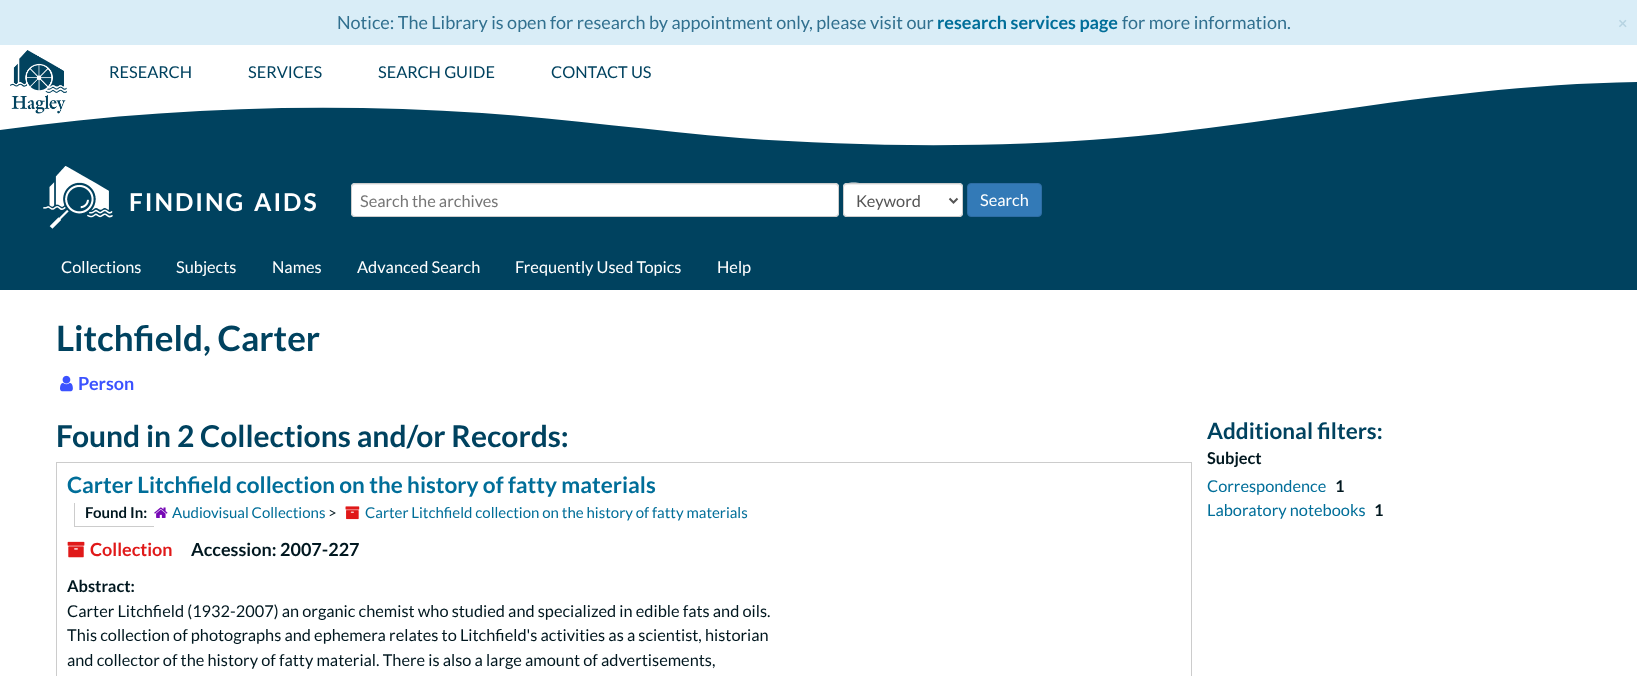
<!DOCTYPE html>
<meta charset="utf-8">
<style>body { margin: 0 } canvas { display: block }</style>
<canvas id="canvas" width="1637" height="676"></canvas>
<script type="module">
  const canvas = document.getElementById("canvas");
  const ctx = canvas.getContext("2d");
  ctx.miterLimit = 4;
  ctx.fontKerning = "normal";
  async function loadImage(src) {
    const img = new Image();
    img.src = src;
    await img.decode();
    return img;
  }

  ctx.fillStyle = "#ffffff";
  ctx.fillRect(0, 0, 1637, 676);
  ctx.fillStyle = "#d9edf7";
  ctx.fillRect(0, 0, 1637, 45);
  ctx.font = "18px Lato";
  ctx.fillStyle = "#31708f";
  ctx.fillText("Notice: The Library is open for research by appointment only, please visit our", 337, 29);
  ctx.font = "bold 18px Lato";
  ctx.fillStyle = "#006e99";
  ctx.fillText("research services page", 937, 29);
  ctx.font = "18px Lato";
  ctx.fillStyle = "#31708f";
  ctx.fillText("for more information.", 1122, 29);
  ctx.font = "bold 16.35px Lato";
  ctx.fillStyle = "#b7d4e2";
  ctx.fillText("×", 1618, 29);
  ctx.fillStyle = "#00425f";
  ctx.beginPath();
  ctx.moveTo(482, 113);
  ctx.bezierCurveTo(569, 119, 654, 131, 740, 138);
  ctx.bezierCurveTo(864, 147, 993, 148, 1116, 138);
  ctx.bezierCurveTo(1236, 128, 1361, 104, 1479, 92);
  ctx.bezierCurveTo(1584, 81, 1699, 77, 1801, 90);
  ctx.lineTo(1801, 146);
  ctx.lineTo(0, 146);
  ctx.lineTo(0, 130);
  ctx.bezierCurveTo(154, 108, 321, 102, 482, 113);
  ctx.closePath();
  ctx.fill();
  ctx.drawImage(await loadImage("img1.png"), 10, 50, 57, 64);
  ctx.font = "16.35px Lato";
  ctx.fillText("RESEARCH", 109, 78);
  ctx.fillText("SERVICES", 248, 78);
  ctx.fillText("SEARCH GUIDE", 378, 78);
  ctx.fillText("CONTACT US", 551, 78);
  ctx.fillRect(0, 146, 1637, 144);
  ctx.drawImage(await loadImage("img2.png"), 43, 166, 70, 63);
  ctx.letterSpacing = "2px";
  ctx.font = "bold 24.5px Lato";
  ctx.fillStyle = "#ffffff";
  ctx.fillText("FINDING", 129, 211);
  ctx.fillText("AIDS", 254, 211);
  ctx.beginPath();
  ctx.roundRect(351, 183, 488, 34, 4);
  ctx.fill();
  ctx.fillStyle = "#ececec";
  ctx.beginPath();
  ctx.moveTo(355, 185);
  ctx.lineTo(835, 185);
  ctx.bezierCurveTo(837, 185, 838, 186, 838, 188);
  ctx.lineTo(838, 187);
  ctx.bezierCurveTo(838, 185, 837, 184, 835, 184);
  ctx.lineTo(355, 184);
  ctx.bezierCurveTo(353, 184, 352, 185, 352, 187);
  ctx.lineTo(352, 188);
  ctx.bezierCurveTo(352, 186, 353, 185, 355, 185);
  ctx.closePath();
  ctx.fill();
  ctx.beginPath();
  ctx.roundRect(351.5, 183.5, 487, 33, 3.5);
  ctx.strokeStyle = "#cccccc";
  ctx.stroke();
  ctx.letterSpacing = "0px";
  ctx.font = "16.35px Lato";
  ctx.fillStyle = "#767676";
  ctx.fillText("Search the archives", 360, 207);
  ctx.fillStyle = "#ffffff";
  ctx.beginPath();
  ctx.roundRect(843, 183, 120, 34, 4);
  ctx.fill();
  ctx.fillStyle = "#ececec";
  ctx.beginPath();
  ctx.moveTo(847, 185);
  ctx.lineTo(959, 185);
  ctx.bezierCurveTo(961, 185, 962, 186, 962, 188);
  ctx.bezierCurveTo(962, 186, 961, 184, 959, 184);
  ctx.lineTo(866, 184);
  ctx.bezierCurveTo(864, 184, 844, 179, 844, 188);
  ctx.bezierCurveTo(844, 186, 845, 185, 847, 185);
  ctx.closePath();
  ctx.fill();
  ctx.beginPath();
  ctx.roundRect(843.5, 183.5, 119, 33, 3.5);
  ctx.stroke();
  ctx.beginPath();
  ctx.moveTo(949.5, 198.5);
  ctx.lineTo(953.5, 202.5);
  ctx.lineTo(957.5, 198.5);
  ctx.strokeStyle = "#555555";
  ctx.lineWidth = 2;
  ctx.stroke();
  ctx.fillStyle = "#555555";
  ctx.fillText("Keyword", 856, 207);
  ctx.fillStyle = "#337ab7";
  ctx.beginPath();
  ctx.roundRect(967.5, 183.5, 74, 33, 3.5);
  ctx.fill();
  ctx.strokeStyle = "#2e6da4";
  ctx.lineWidth = 1;
  ctx.stroke();
  ctx.fillStyle = "#ffffff";
  ctx.fillText("Search", 980, 206);
  ctx.fillText("Collections", 61, 273);
  ctx.fillText("Subjects", 176, 273);
  ctx.fillText("Names", 272, 273);
  ctx.fillText("Advanced Search", 357, 273);
  ctx.fillText("Frequently Used Topics", 515, 273);
  ctx.fillText("Help", 717, 273);
  ctx.font = "bold 35px Lato";
  ctx.fillStyle = "#00425f";
  ctx.fillText("Litchfield, Carter", 56, 351);
  ctx.drawImage(await loadImage("img3.png"), 60, 375, 13, 17);
  ctx.font = "bold 18px Lato";
  ctx.fillStyle = "#3b52ff";
  ctx.fillText("Person", 78, 390);
  ctx.font = "bold 30px Lato";
  ctx.fillStyle = "#00425f";
  ctx.fillText("Found in 2 Collections and/or Records:", 56, 447);
  ctx.strokeStyle = "#cccccc";
  ctx.strokeRect(56.5, 462.5, 1135, 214);
  ctx.font = "bold 22.5px Lato";
  ctx.fillStyle = "#006e99";
  ctx.fillText("Carter Litchfield collection on the history of fatty materials", 67, 493);
  ctx.font = "bold 15px Lato";
  ctx.fillStyle = "#00171f";
  ctx.fillText("Found In:", 85, 518);
  ctx.fillStyle = "#cccccc";
  ctx.fillRect(74, 526, 80, 1);
  ctx.fillRect(74, 503, 1, 24);
  ctx.drawImage(await loadImage("img4.png"), 154, 507, 14, 11);
  ctx.font = "15px Lato";
  ctx.fillStyle = "#006e99";
  ctx.fillText("Audiovisual Collections", 172, 518);
  ctx.fillStyle = "#00171f";
  ctx.fillText(">", 328, 518);
  ctx.drawImage(await loadImage("img5.png"), 345, 506, 15, 14);
  ctx.fillStyle = "#006e99";
  ctx.fillText("Carter Litchfield collection on the history of fatty materials", 365, 518);
  ctx.drawImage(await loadImage("img6.png"), 67, 541, 18, 17);
  ctx.font = "bold 18px Lato";
  ctx.fillStyle = "#e01919";
  ctx.fillText("Collection", 90, 556);
  ctx.fillStyle = "#00171f";
  ctx.fillText("Accession:", 191, 556);
  ctx.fillText("2007-227", 280, 556);
  ctx.font = "bold 16.35px Lato";
  ctx.fillText("Abstract:", 67, 592);
  ctx.font = "16.35px Lato";
  ctx.fillText("Carter Litchfield (1932-2007) an organic chemist who studied and specialized in edible fats and oils.", 67, 617);
  ctx.fillText("This collection of photographs and ephemera relates to Litchfield's activities as a scientist, historian", 67, 641);
  ctx.fillText("and collector of the history of fatty material. There is also a large amount of advertisements,", 67, 666);
  ctx.font = "bold 22.5px Lato";
  ctx.fillStyle = "#00425f";
  ctx.fillText("Additional filters:", 1207, 439);
  ctx.font = "bold 16.35px Lato";
  ctx.fillStyle = "#00171f";
  ctx.fillText("Subject", 1207, 464);
  ctx.font = "16.35px Lato";
  ctx.fillStyle = "#006e99";
  ctx.fillText("Correspondence", 1207, 492);
  ctx.font = "bold 16.35px Lato";
  ctx.fillStyle = "#00171f";
  ctx.fillText("1", 1335, 492);
  ctx.font = "16.35px Lato";
  ctx.fillStyle = "#006e99";
  ctx.fillText("Laboratory notebooks", 1207, 516);
  ctx.font = "bold 16.35px Lato";
  ctx.fillStyle = "#00171f";
  ctx.fillText("1", 1374, 516);
</script>
